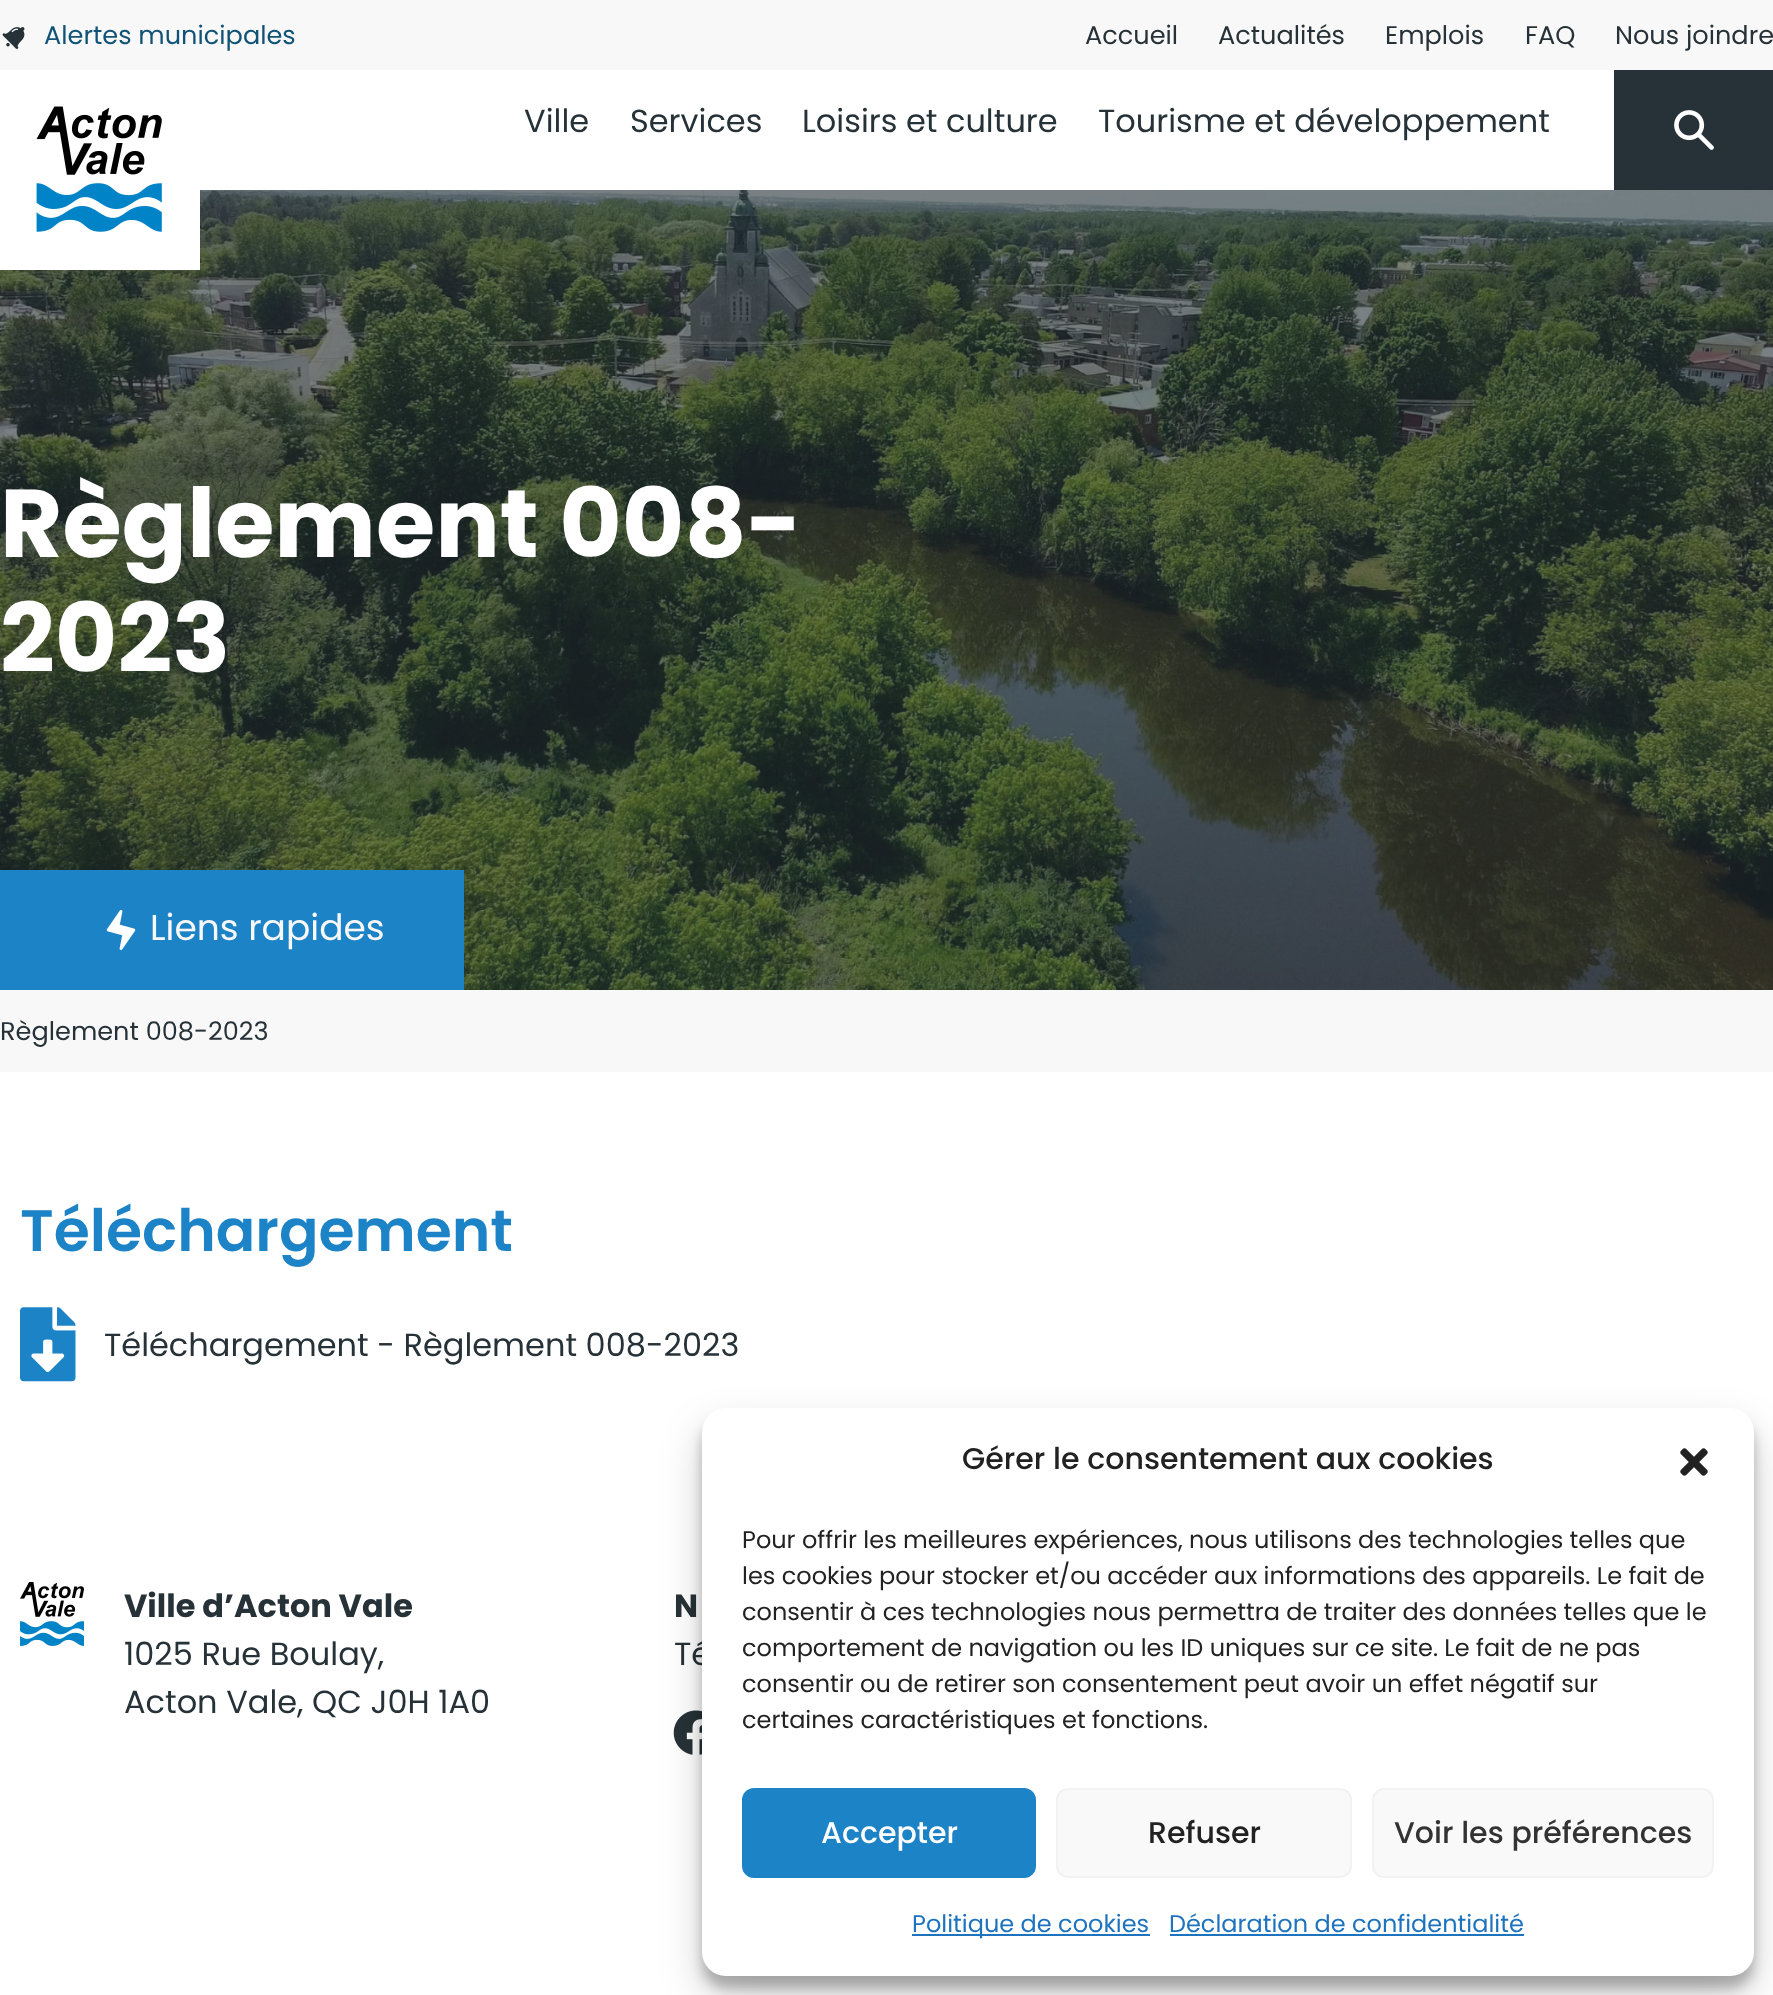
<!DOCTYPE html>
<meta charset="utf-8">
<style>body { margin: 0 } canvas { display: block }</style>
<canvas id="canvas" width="1773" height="1995"></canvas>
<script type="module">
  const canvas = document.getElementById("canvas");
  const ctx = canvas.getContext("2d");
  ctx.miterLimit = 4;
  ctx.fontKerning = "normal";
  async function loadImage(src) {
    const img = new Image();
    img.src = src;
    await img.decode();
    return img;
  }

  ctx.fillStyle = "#ffffff";
  ctx.fillRect(0, 0, 1773, 1995);
  ctx.fillStyle = "#f8f8f8";
  ctx.fillRect(0, 0, 1773, 70);
  ctx.drawImage(await loadImage("img1.png"), 2, 27, 23, 22);
  ctx.font = "25.6px Poppins";
  ctx.fillStyle = "#115376";
  ctx.fillText("Alertes municipales", 44, 44);
  ctx.fillStyle = "#263237";
  ctx.fillText("Accueil", 1085, 44);
  ctx.fillText("Actualités", 1218, 44);
  ctx.fillText("Emplois", 1385, 44);
  ctx.fillText("FAQ", 1525, 44);
  ctx.fillText("Nous joindre", 1615, 44);
  ctx.drawImage(await loadImage("img4.png"), 0, 190, 1773, 800);
  ctx.drawImage(await loadImage("img2.png"), 0, 106, 200, 164);
  ctx.font = "32px Poppins";
  ctx.fillText("Ville", 524, 132);
  ctx.fillText("Services", 630, 132);
  ctx.fillText("Loisirs et culture", 802, 132);
  ctx.fillText("Tourisme et développement", 1098, 132);
  ctx.fillRect(1614, 70, 159, 120);
  ctx.drawImage(await loadImage("img3.png"), 1674, 110, 40, 40);
  ctx.font = "bold 96px Poppins";
  ctx.fillStyle = "#ffffff";
  ctx.fillText("Règlement 008-", 0, 557);
  ctx.fillText("2023", 0, 672);
  ctx.fillStyle = "#1c83c7";
  ctx.fillRect(0, 870, 464, 120);
  ctx.drawImage(await loadImage("img5.png"), 106, 910, 30, 40);
  ctx.font = "36px Poppins";
  ctx.fillStyle = "#f8f8f8";
  ctx.fillText("Liens rapides", 150, 940);
  ctx.fillRect(0, 990, 1773, 82);
  ctx.font = "25.6px Poppins";
  ctx.fillStyle = "#263237";
  ctx.fillText("Règlement 008-2023", 0, 1040);
  ctx.font = "600 58.4px Poppins";
  ctx.fillStyle = "#1c83c7";
  ctx.fillText("Téléchargement", 20, 1251);
  ctx.drawImage(await loadImage("img6.png"), 20, 1307, 56, 75);
  ctx.font = "32px Poppins";
  ctx.fillStyle = "#263237";
  ctx.fillText("Téléchargement - Règlement 008-2023", 104, 1356);
  ctx.drawImage(await loadImage("img7.png"), 20, 1582, 64, 64);
  ctx.font = "bold 32px Poppins";
  ctx.fillText("Ville d’Acton Vale", 124, 1617);
  ctx.font = "32px Poppins";
  ctx.fillText("1025 Rue Boulay,", 124, 1665);
  ctx.fillText("Acton Vale, QC J0H 1A0", 124, 1713);
  ctx.font = "bold 32px Poppins";
  ctx.fillText("N", 674, 1617);
  ctx.font = "32px Poppins";
  ctx.fillText("Té", 674, 1665);
  ctx.drawImage(await loadImage("img8.png"), 673, 1710, 29, 45);
  ctx.fillStyle = "rgba(0, 0, 0, 0.23)";
  ctx.filter = "blur(6px)";
  ctx.beginPath();
  ctx.roundRect(702, 1420, 1052, 568, 24);
  ctx.fill();
  ctx.filter = "none";
  ctx.fillStyle = "rgba(0, 0, 0, 0.19)";
  ctx.filter = "blur(20px)";
  ctx.beginPath();
  ctx.roundRect(702, 1428, 1052, 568, 24);
  ctx.fill();
  ctx.filter = "none";
  ctx.fillStyle = "#ffffff";
  ctx.beginPath();
  ctx.roundRect(702, 1408, 1052, 568, 24);
  ctx.fill();
  ctx.font = "500 30px Poppins";
  ctx.fillStyle = "#222222";
  ctx.fillText("Gérer le consentement aux cookies", 962, 1469);
  ctx.drawImage(await loadImage("img9.png"), 1680, 1448, 28, 28);
  ctx.font = "24px Poppins";
  ctx.fillText("Pour offrir les meilleures expériences, nous utilisons des technologies telles que", 742, 1548);
  ctx.fillText("les cookies pour stocker et/ou accéder aux informations des appareils. Le fait de", 742, 1584);
  ctx.fillText("consentir à ces technologies nous permettra de traiter des données telles que le", 742, 1620);
  ctx.fillText("comportement de navigation ou les ID uniques sur ce site. Le fait de ne pas", 742, 1656);
  ctx.fillText("consentir ou de retirer son consentement peut avoir un effet négatif sur", 742, 1692);
  ctx.fillText("certaines caractéristiques et fonctions.", 742, 1728);
  ctx.fillStyle = "#1c83c7";
  ctx.beginPath();
  ctx.roundRect(743, 1789, 292, 88, 11);
  ctx.fill();
  ctx.strokeStyle = "#1c83c7";
  ctx.lineWidth = 2;
  ctx.stroke();
  ctx.font = "500 30px Poppins";
  ctx.fillStyle = "#ffffff";
  ctx.fillText("Accepter", 821, 1843);
  ctx.fillStyle = "#f9f9f9";
  ctx.beginPath();
  ctx.roundRect(1057, 1789, 294, 88, 11);
  ctx.fill();
  ctx.strokeStyle = "#f2f2f2";
  ctx.stroke();
  ctx.fillStyle = "#222222";
  ctx.fillText("Refuser", 1148, 1843);
  ctx.fillStyle = "#f9f9f9";
  ctx.beginPath();
  ctx.roundRect(1373, 1789, 340, 88, 11);
  ctx.fill();
  ctx.stroke();
  ctx.fillStyle = "#333333";
  ctx.fillText("Voir les préférences", 1394, 1843);
  ctx.fillStyle = "#1e73be";
  ctx.fillRect(912, 1934, 238, 2);
  ctx.font = "24px Poppins";
  ctx.fillText("Politique de cookies", 912, 1932);
  ctx.fillText("Déclaration de confidentialité", 1169, 1932);
  ctx.fillRect(1170, 1934, 354, 2);
</script>
